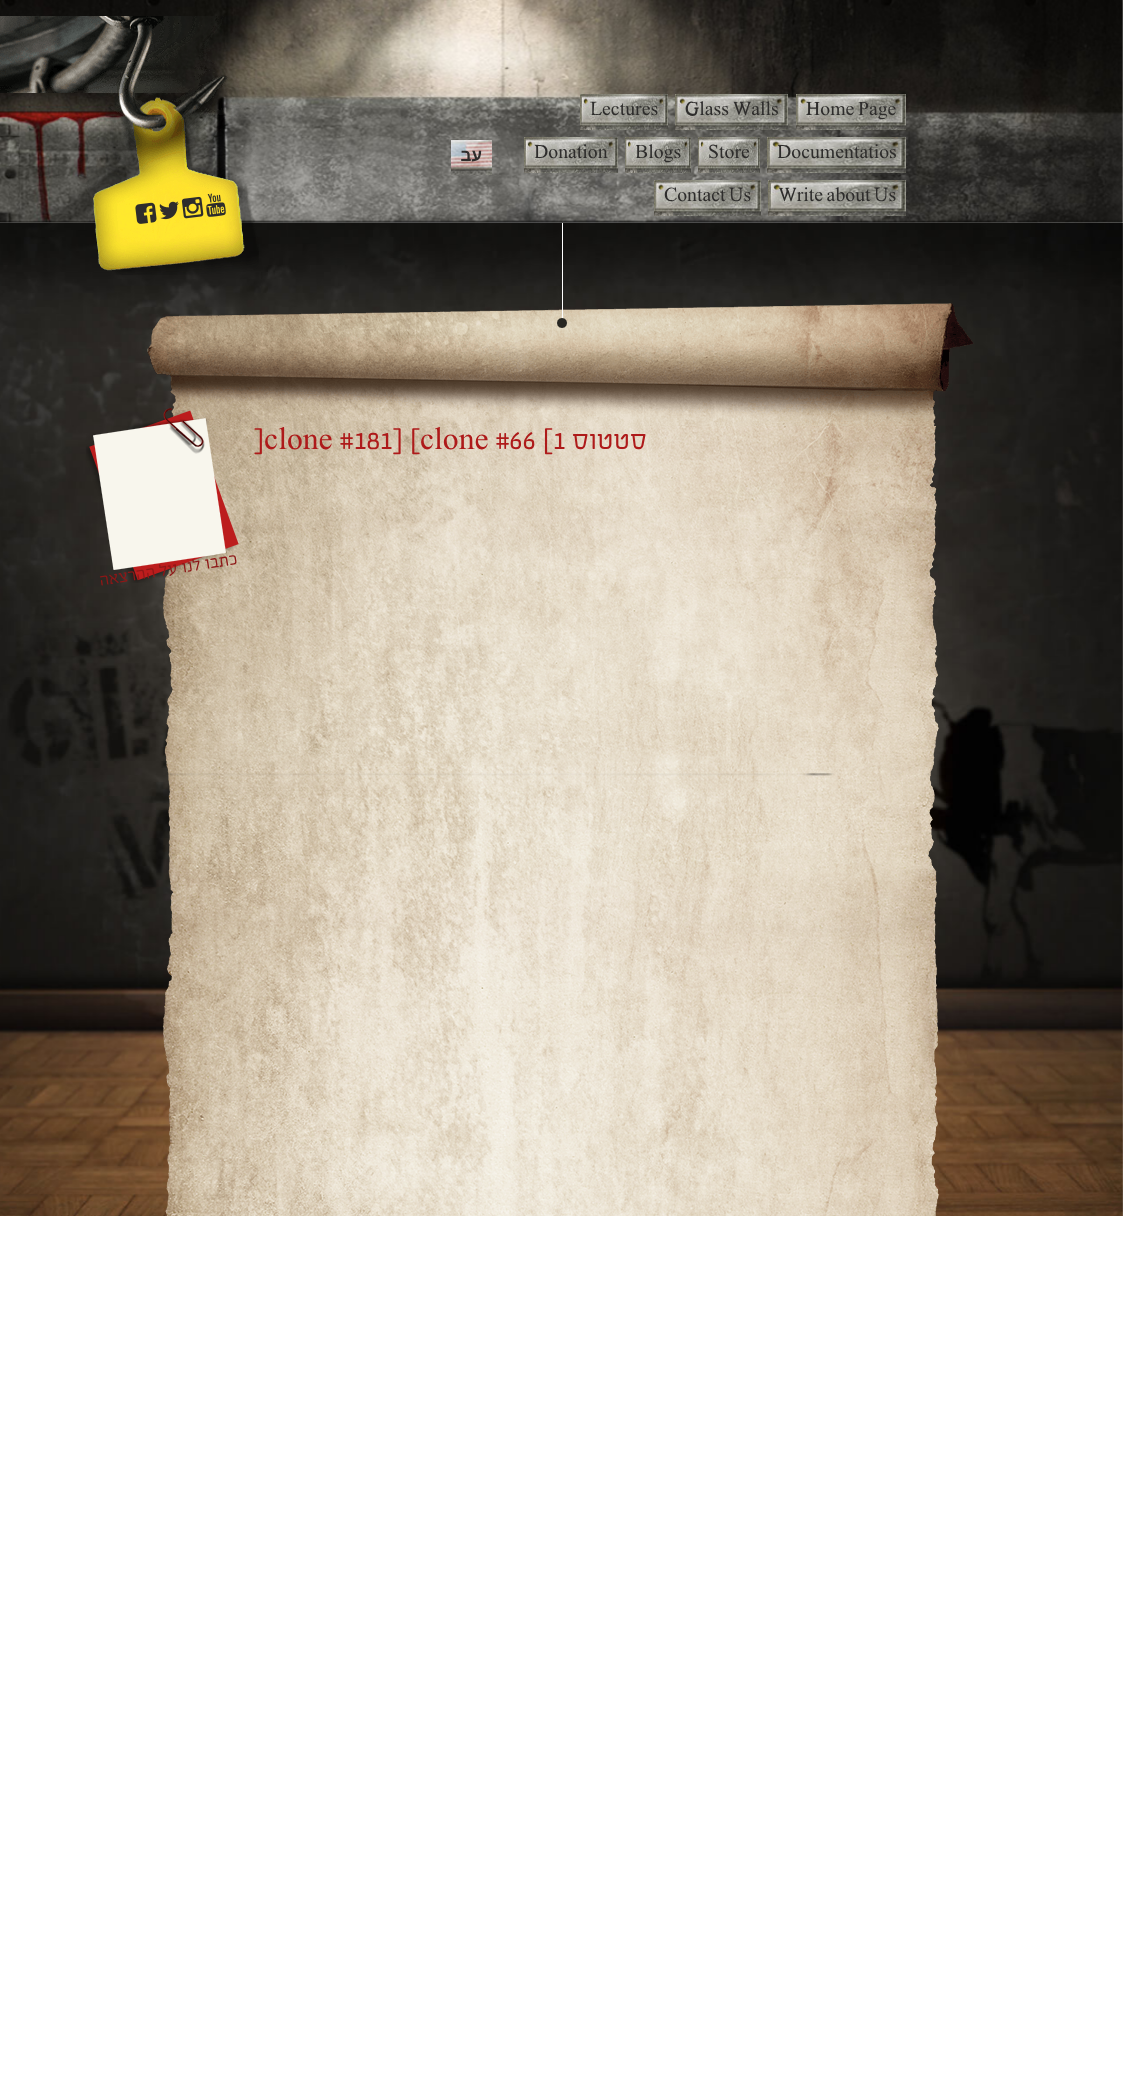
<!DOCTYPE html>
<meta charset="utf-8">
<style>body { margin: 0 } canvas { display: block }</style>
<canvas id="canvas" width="1123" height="2080"></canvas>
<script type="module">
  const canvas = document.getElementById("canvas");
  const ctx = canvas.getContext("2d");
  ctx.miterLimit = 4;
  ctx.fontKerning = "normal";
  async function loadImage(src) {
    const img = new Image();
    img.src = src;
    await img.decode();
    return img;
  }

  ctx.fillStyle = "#ffffff";
  ctx.fillRect(0, 0, 1123, 2080);
  ctx.drawImage(await loadImage("img1.png"), 0, 0, 1123, 223);
  ctx.drawImage(await loadImage("img17.png"), 0, 223, 1123, 993);
  ctx.drawImage(await loadImage("img2.png"), 0, 16, 259, 259);
  ctx.drawImage(await loadImage("img3.png"), 135, 202, 22, 22);
  ctx.drawImage(await loadImage("img4.png"), 159, 201, 20, 19);
  ctx.drawImage(await loadImage("img5.png"), 181, 196, 23, 23);
  ctx.drawImage(await loadImage("img6.png"), 206, 193, 20, 24);
  ctx.drawImage(await loadImage("img7.png"), 451, 140, 41, 35);
  ctx.direction = "rtl";
  ctx.font = "bold 17px Liberation Sans";
  ctx.fillStyle = "#2e2d2c";
  ctx.fillText("עב", 482, 161);
  ctx.drawImage(await loadImage("img8.png"), 580, 94, 88, 36);
  ctx.direction = "ltr";
  ctx.font = "bold 20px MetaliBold";
  ctx.fillText("Lectures", 590, 115);
  ctx.drawImage(await loadImage("img9.png"), 675, 94, 113, 36);
  ctx.fillText("Glass Walls", 685, 115);
  ctx.drawImage(await loadImage("img10.png"), 796, 94, 110, 36);
  ctx.fillText("Home Page", 806, 115);
  ctx.drawImage(await loadImage("img11.png"), 524, 137, 94, 36);
  ctx.fillText("Donation", 534, 158);
  ctx.drawImage(await loadImage("img12.png"), 625, 137, 66, 36);
  ctx.fillText("Blogs", 635, 158);
  ctx.drawImage(await loadImage("img13.png"), 698, 137, 62, 36);
  ctx.fillText("Store", 708, 158);
  ctx.drawImage(await loadImage("img14.png"), 767, 137, 139, 36);
  ctx.fillText("Documentatios", 777, 158);
  ctx.drawImage(await loadImage("img15.png"), 654, 180, 107, 36);
  ctx.fillText("Contact Us", 664, 201);
  ctx.drawImage(await loadImage("img16.png"), 768, 180, 138, 36);
  ctx.fillText("Write about Us", 778, 201);
  ctx.drawImage(await loadImage("img19.png"), 147, 303, 827, 123);
  ctx.drawImage(await loadImage("img18.png"), 557, 223, 10, 105);
  ctx.drawImage(await loadImage("img20.png"), 162, 426, 777, 790);
  ctx.font = "32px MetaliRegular";
  ctx.fillStyle = "#ae1a1a";
  ctx.fillText("]clone #181] [clone #66 [1", 254, 449);
  ctx.direction = "rtl";
  ctx.fillText("סטטוס", 647, 449);
  ctx.drawImage(await loadImage("img21.png"), 86, 410, 153, 173);
  ctx.drawImage(await loadImage("img22.png"), 163, 408, 42, 46);
  ctx.font = "20px MetaliRegular";
  ctx.fillStyle = "#8e1717";
  ctx.save();
  ctx.translate(238, 564);
  ctx.rotate(-9 * Math.PI / 180);
  ctx.fillText("כתבו לנו על ההרצאה", 0, 0);
  ctx.restore();
</script>
